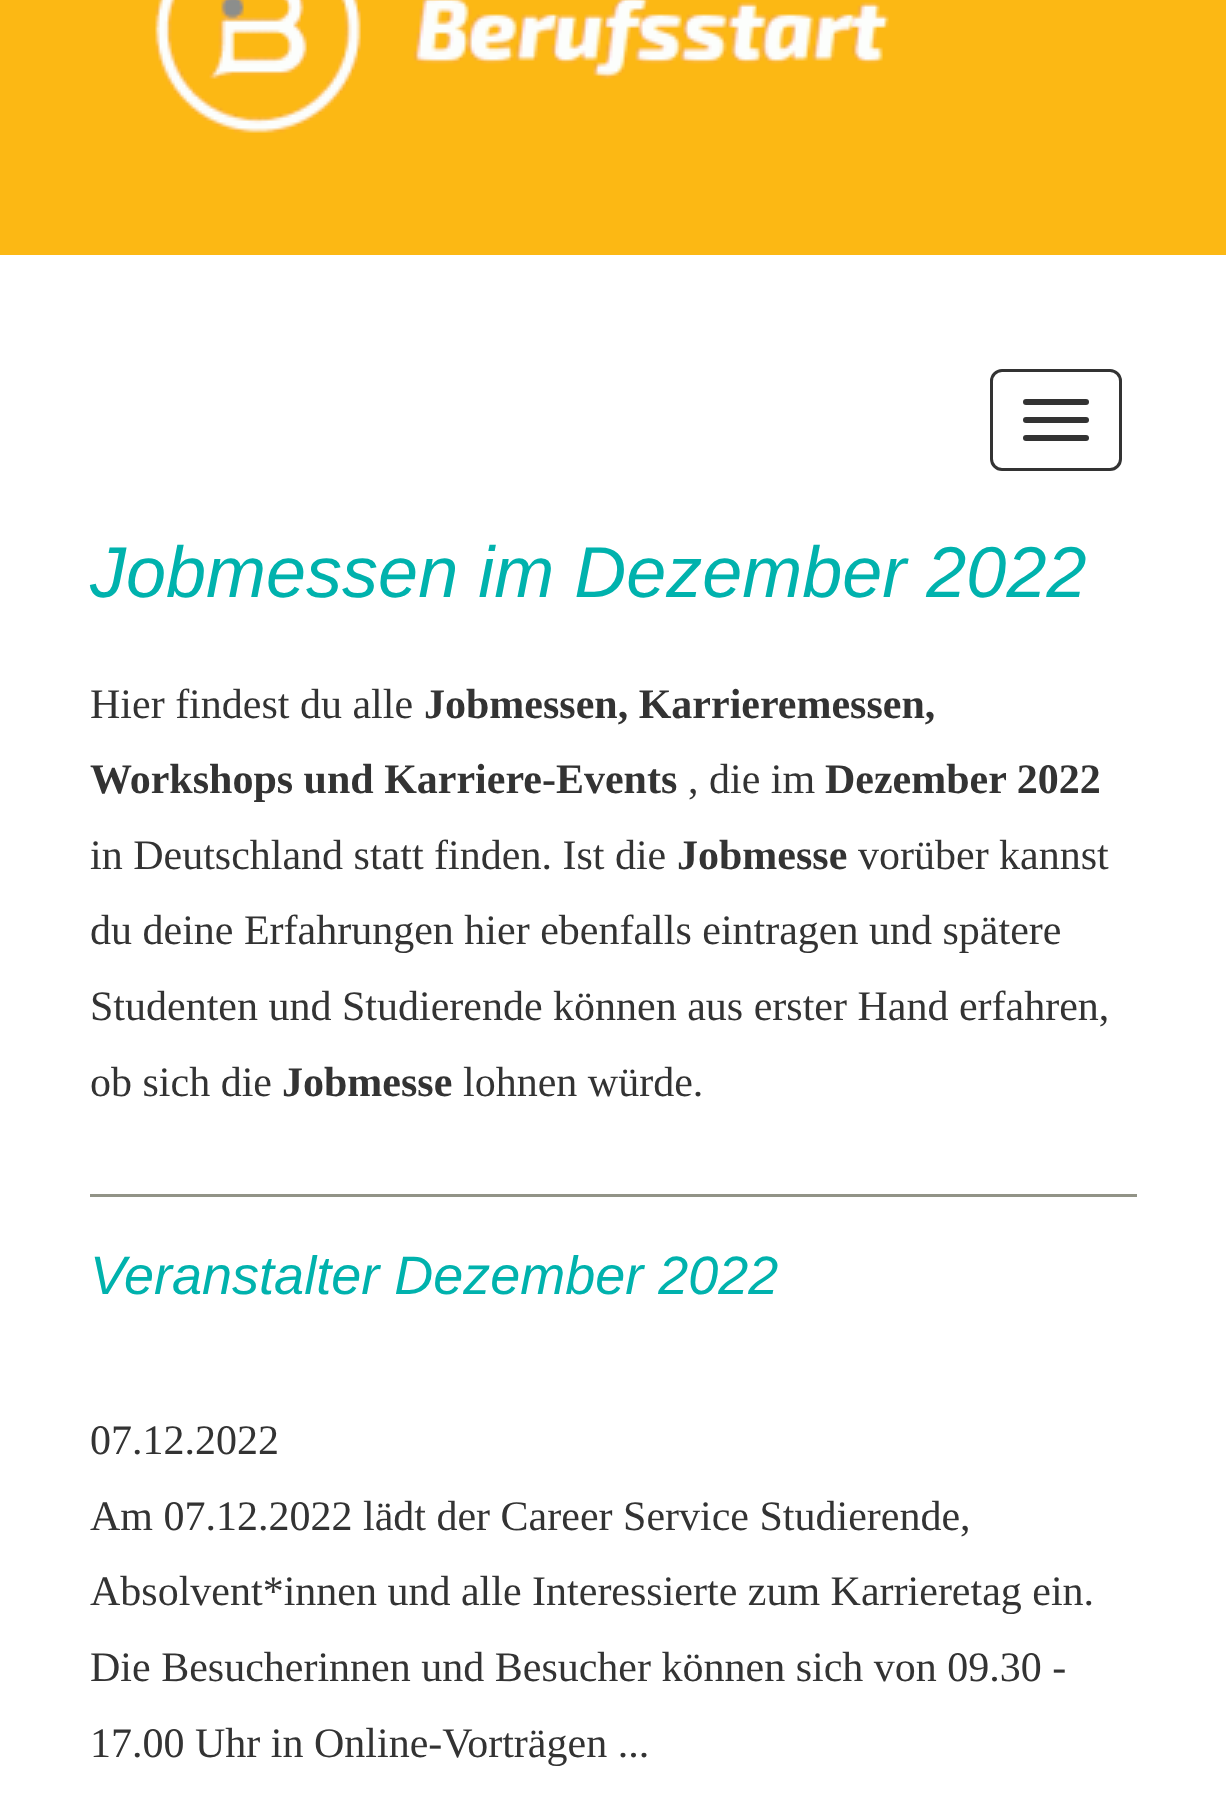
<!DOCTYPE html>
<meta charset="utf-8">
<style>body { margin: 0 } canvas { display: block }</style>
<canvas id="canvas" width="1226" height="1798"></canvas>
<script type="module">
  const canvas = document.getElementById("canvas");
  const ctx = canvas.getContext("2d");
  ctx.miterLimit = 4;
  ctx.fontKerning = "normal";
  async function loadImage(src) {
    const img = new Image();
    img.src = src;
    await img.decode();
    return img;
  }

  ctx.fillStyle = "#ffffff";
  ctx.fillRect(0, 0, 1226, 1798);
  ctx.fillStyle = "#fcb814";
  ctx.fillRect(0, 0, 1226, 255);
  ctx.drawImage(await loadImage("img1.png"), 155, 0, 734, 133);
  ctx.beginPath();
  ctx.roundRect(991.5, 370.5, 129, 99, 10.5);
  ctx.strokeStyle = "#333333";
  ctx.lineWidth = 3;
  ctx.stroke();
  ctx.fillStyle = "#333333";
  ctx.beginPath();
  ctx.roundRect(1023, 399, 66, 6, 3);
  ctx.fill();
  ctx.beginPath();
  ctx.roundRect(1023, 417, 66, 6, 3);
  ctx.fill();
  ctx.beginPath();
  ctx.roundRect(1023, 435, 66, 6, 3);
  ctx.fill();
  ctx.font = "italic 72px Liberation Sans";
  ctx.fillStyle = "#00b2ad";
  ctx.fillText("Jobmessen im Dezember 2022", 90, 597);
  ctx.font = "42px Liberation Serif";
  ctx.fillStyle = "#333333";
  ctx.fillText("Hier findest du alle", 90, 718);
  ctx.font = "bold 42px Liberation Serif";
  ctx.fillText("Jobmessen, Karrieremessen,", 424, 718);
  ctx.fillText("Workshops und Karriere-Events", 90, 793);
  ctx.font = "42px Liberation Serif";
  ctx.fillText(", die im", 688, 793);
  ctx.font = "bold 42px Liberation Serif";
  ctx.fillText("Dezember 2022", 825, 793);
  ctx.font = "42px Liberation Serif";
  ctx.fillText("in Deutschland statt finden. Ist die", 90, 869);
  ctx.font = "bold 42px Liberation Serif";
  ctx.fillText("Jobmesse", 677, 869);
  ctx.font = "42px Liberation Serif";
  ctx.fillText("vorüber kannst", 858, 869);
  ctx.fillText("du deine Erfahrungen hier ebenfalls eintragen und spätere", 90, 944);
  ctx.fillText("Studenten und Studierende können aus erster Hand erfahren,", 90, 1020);
  ctx.fillText("ob sich die", 90, 1096);
  ctx.font = "bold 42px Liberation Serif";
  ctx.fillText("Jobmesse", 282, 1096);
  ctx.font = "42px Liberation Serif";
  ctx.fillText("lohnen würde.", 463, 1096);
  ctx.fillStyle = "#929387";
  ctx.fillRect(90, 1194, 1047, 3);
  ctx.font = "italic 54px Liberation Sans";
  ctx.fillStyle = "#00b2ad";
  ctx.fillText("Veranstalter Dezember 2022", 90, 1294);
  ctx.font = "42px Liberation Serif";
  ctx.fillStyle = "#333333";
  ctx.fillText("07.12.2022", 90, 1454);
  ctx.fillText("Am 07.12.2022 lädt der Career Service Studierende,", 90, 1530);
  ctx.fillText("Absolvent*innen und alle Interessierte zum Karrieretag ein.", 90, 1605);
  ctx.fillText("Die Besucherinnen und Besucher können sich von 09.30 -", 90, 1681);
  ctx.fillText("17.00 Uhr in Online-Vorträgen ...", 90, 1757);
</script>
